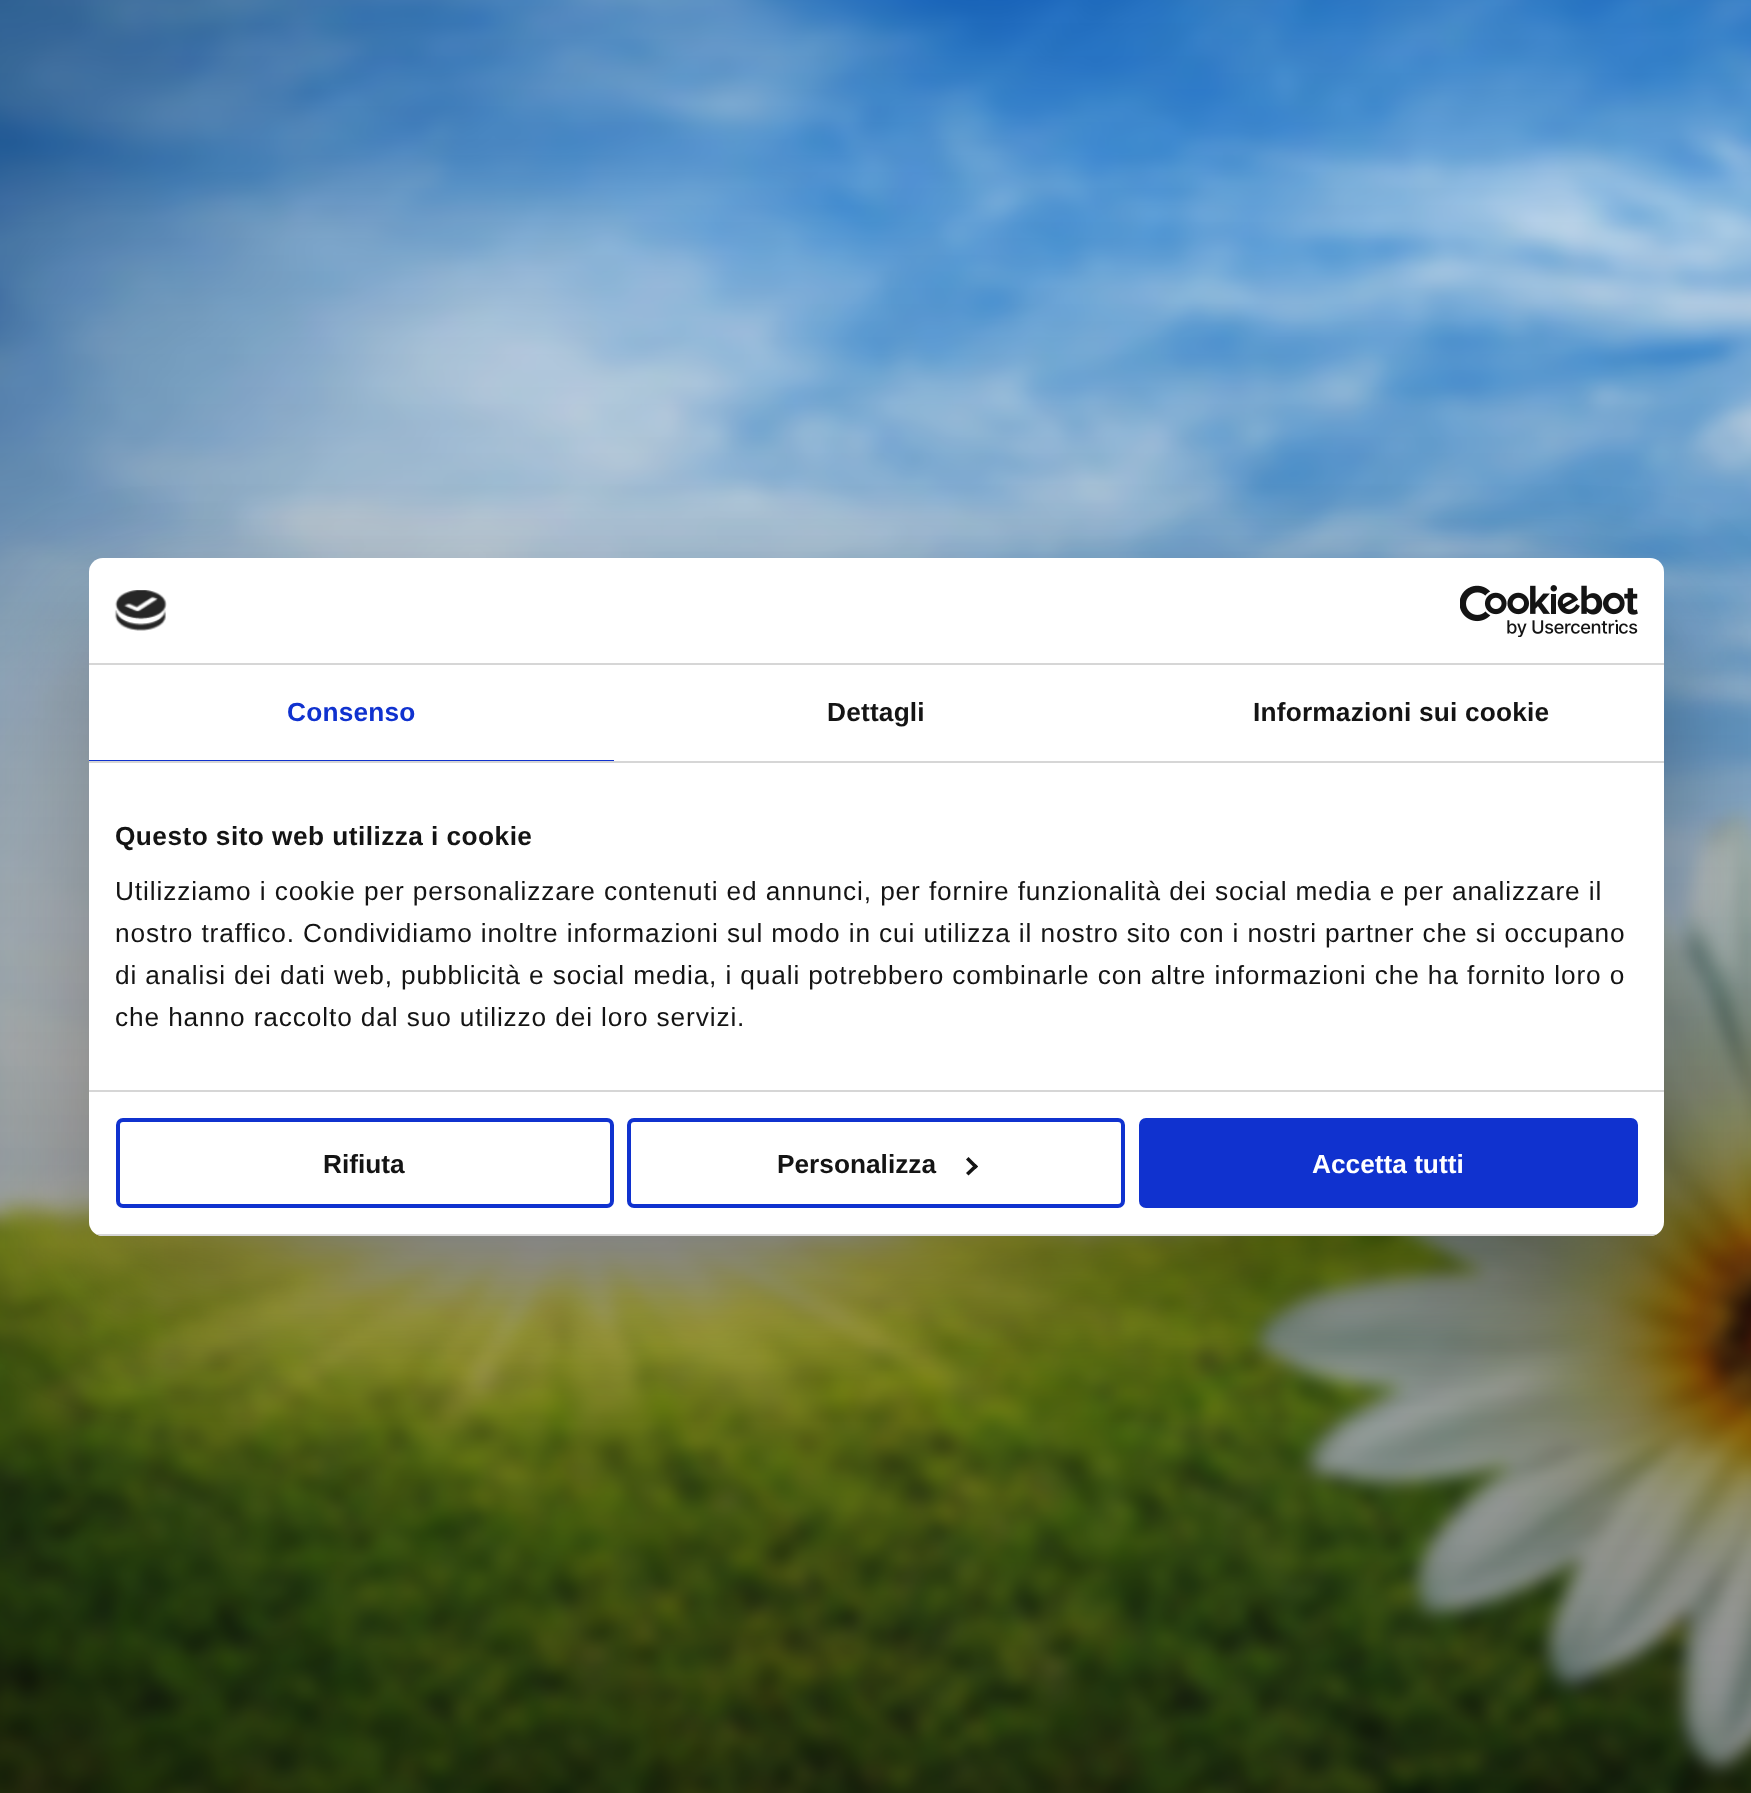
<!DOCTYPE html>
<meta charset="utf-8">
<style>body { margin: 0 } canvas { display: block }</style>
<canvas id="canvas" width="1751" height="1793"></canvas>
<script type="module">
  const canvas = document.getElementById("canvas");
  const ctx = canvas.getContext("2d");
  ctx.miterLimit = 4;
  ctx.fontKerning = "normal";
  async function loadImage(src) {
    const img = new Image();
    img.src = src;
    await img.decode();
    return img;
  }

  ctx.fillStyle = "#ffffff";
  ctx.fillRect(0, 0, 1751, 1793);
  ctx.drawImage(await loadImage("img1.png"), 0, 0, 1751, 1793);
  ctx.fillStyle = "rgba(0, 0, 0, 0.3)";
  ctx.filter = "blur(59.5px)";
  ctx.beginPath();
  ctx.roundRect(89, 614, 1575, 678, 14);
  ctx.fill();
  ctx.filter = "none";
  ctx.fillStyle = "#ffffff";
  ctx.beginPath();
  ctx.roundRect(89, 558, 1575, 678, 14);
  ctx.fill();
  ctx.fillStyle = "#d6d6d6";
  ctx.fillRect(89, 663, 1575, 2);
  ctx.drawImage(await loadImage("img2.png"), 114, 590, 53, 41);
  ctx.drawImage(await loadImage("img3.png"), 1460, 585, 178, 52);
  ctx.fillRect(89, 761, 1575, 2);
  ctx.fillStyle = "#1032cf";
  ctx.fillRect(89, 760, 525, 1);
  ctx.letterSpacing = "0.2px";
  ctx.font = "bold 26.25px Liberation Sans";
  ctx.fillText("Consenso", 287, 721);
  ctx.fillStyle = "#141414";
  ctx.fillText("Dettagli", 827, 721);
  ctx.fillText("Informazioni sui cookie", 1253, 721);
  ctx.fillStyle = "#d6d6d6";
  ctx.fillRect(89, 1090, 1575, 2);
  ctx.letterSpacing = "0.45px";
  ctx.fillStyle = "#141414";
  ctx.fillText("Questo sito web utilizza i cookie", 115, 845);
  ctx.letterSpacing = "0.88px";
  ctx.font = "26.25px Liberation Sans";
  ctx.fillText("Utilizziamo i cookie per personalizzare contenuti ed annunci, per fornire funzionalità dei social media e per analizzare il", 115, 900);
  ctx.fillText("nostro traffico. Condividiamo inoltre informazioni sul modo in cui utilizza il nostro sito con i nostri partner che si occupano", 115, 942);
  ctx.fillText("di analisi dei dati web, pubblicità e social media, i quali potrebbero combinarle con altre informazioni che ha fornito loro o", 115, 984);
  ctx.fillText("che hanno raccolto dal suo utilizzo dei loro servizi.", 115, 1026);
  ctx.save();
  ctx.beginPath();
  ctx.roundRect(89, 558, 1575, 678, 14);
  ctx.clip();
  ctx.fillStyle = "#d6d6d6";
  ctx.fillRect(89, 1234, 1575, 2);
  ctx.restore();
  ctx.beginPath();
  ctx.roundRect(118, 1120, 494, 86, 5);
  ctx.strokeStyle = "#1032cf";
  ctx.lineWidth = 4;
  ctx.stroke();
  ctx.letterSpacing = "0px";
  ctx.font = "bold 26.25px Liberation Sans";
  ctx.fillText("Rifiuta", 323, 1173);
  ctx.beginPath();
  ctx.roundRect(629, 1120, 494, 86, 5);
  ctx.stroke();
  ctx.fillText("Personalizza", 777, 1173);
  ctx.beginPath();
  ctx.moveTo(968.5, 1157);
  ctx.lineTo(978, 1166.5);
  ctx.lineTo(975.5, 1169);
  ctx.lineTo(966, 1159.5);
  ctx.closePath();
  ctx.fill();
  ctx.beginPath();
  ctx.moveTo(975.5, 1164);
  ctx.lineTo(978, 1166.5);
  ctx.lineTo(968.5, 1175.5);
  ctx.lineTo(966, 1173);
  ctx.closePath();
  ctx.fill();
  ctx.fillStyle = "#1032cf";
  ctx.beginPath();
  ctx.roundRect(1141, 1120, 495, 86, 5);
  ctx.fill();
  ctx.stroke();
  ctx.fillStyle = "#ffffff";
  ctx.fillText("Accetta tutti", 1312, 1173);
</script>
